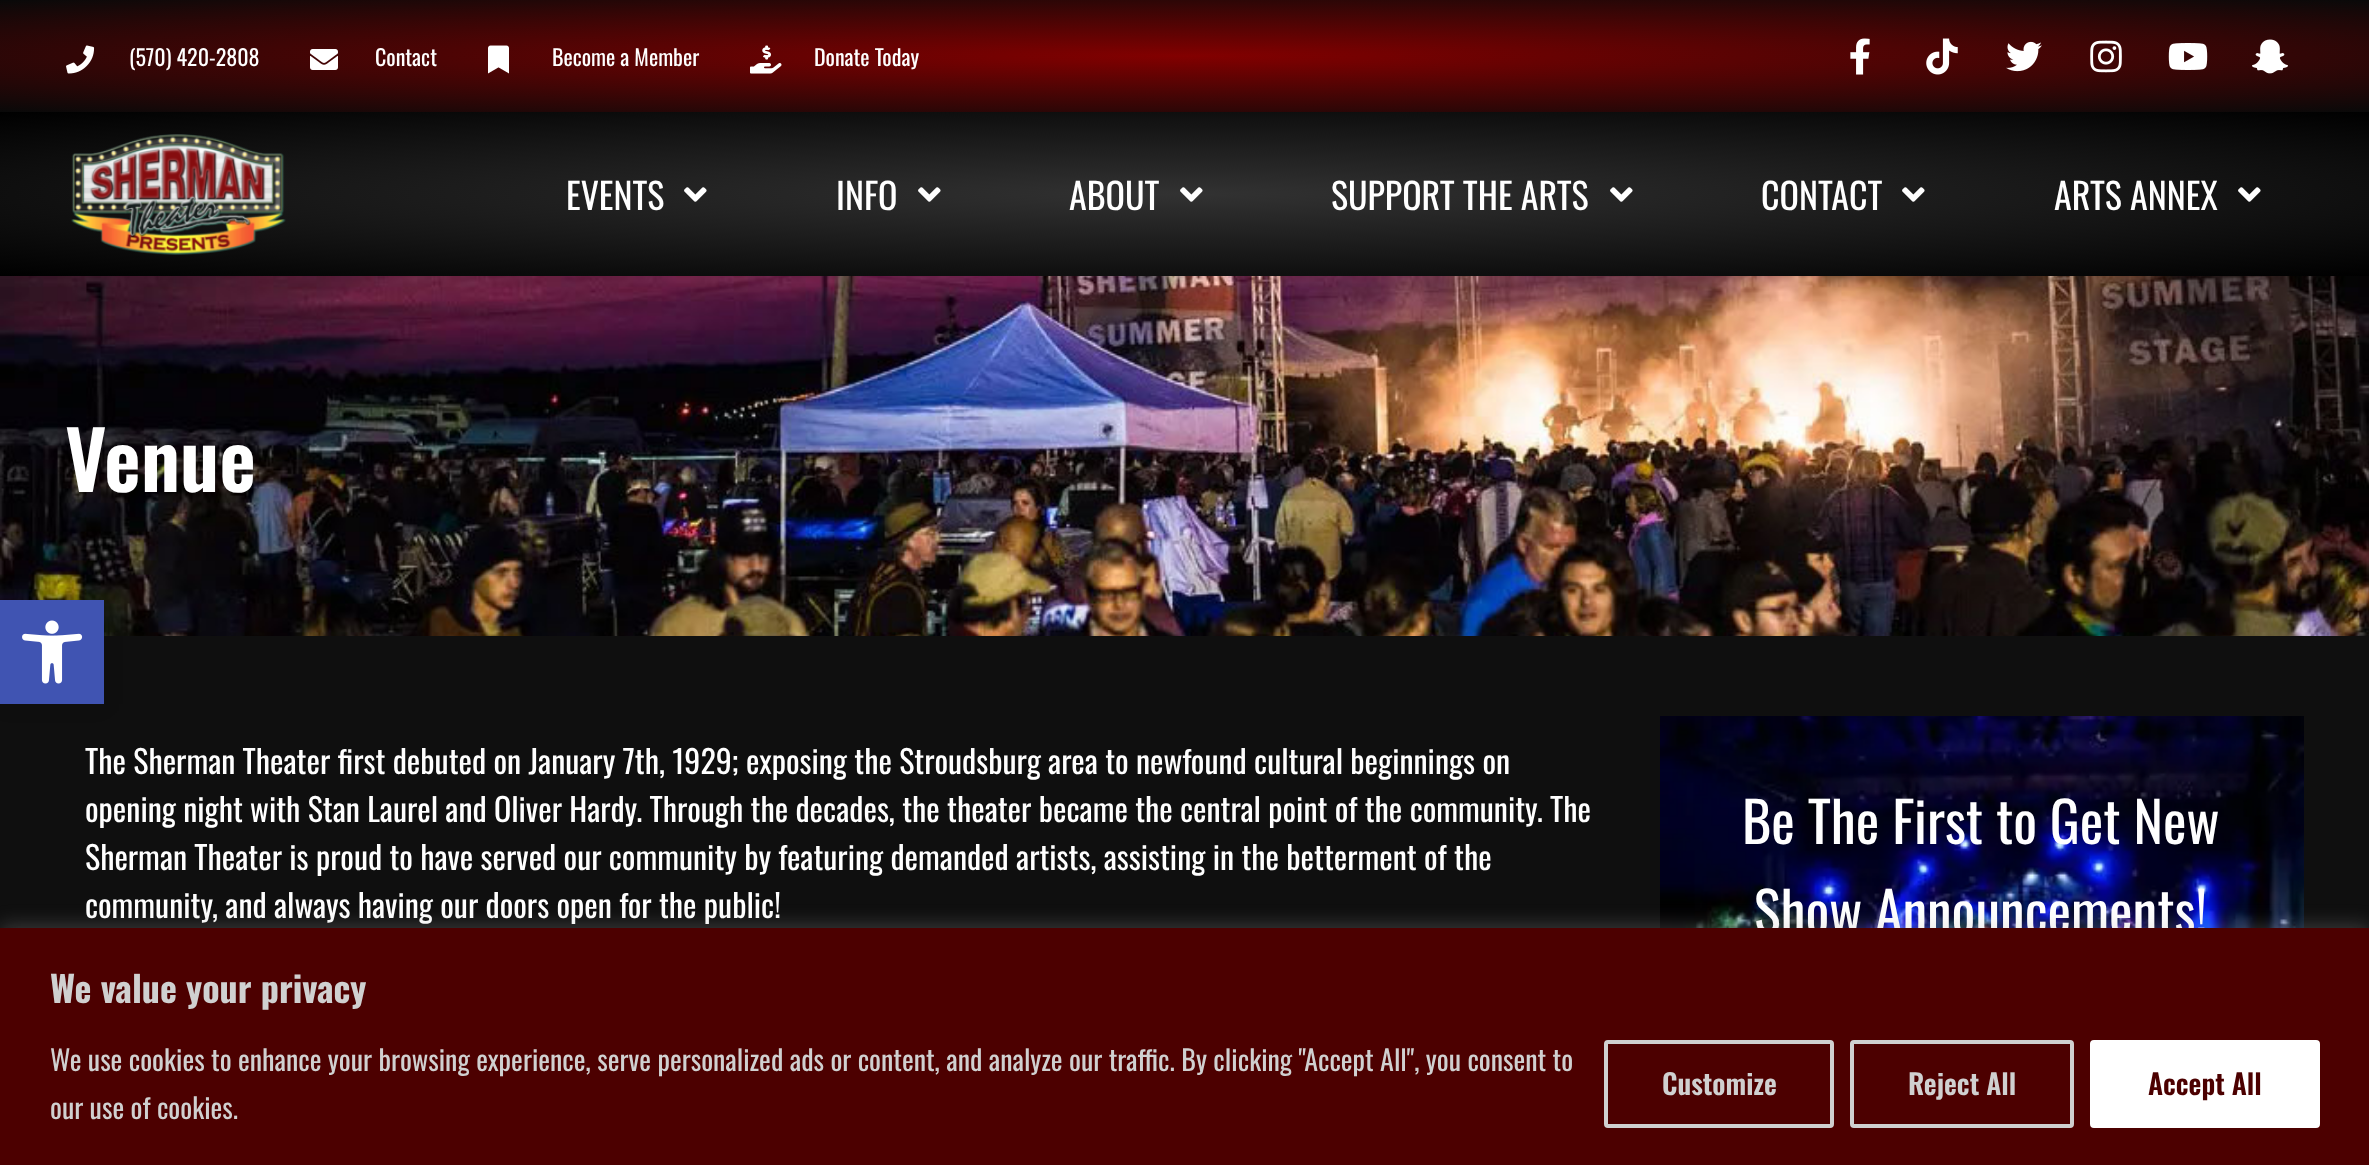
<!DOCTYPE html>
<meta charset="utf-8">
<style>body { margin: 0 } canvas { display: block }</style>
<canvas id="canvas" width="2369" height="1165"></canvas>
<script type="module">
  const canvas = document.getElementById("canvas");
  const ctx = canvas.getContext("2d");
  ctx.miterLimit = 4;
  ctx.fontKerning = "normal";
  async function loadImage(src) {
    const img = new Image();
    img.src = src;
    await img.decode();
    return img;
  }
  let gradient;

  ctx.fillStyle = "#0f0f0f";
  ctx.fillRect(0, 0, 2369, 1165);
  gradient = ctx.createRadialGradient(1185, 1188.05, 0, 1185, 1188.05, 1676);
  gradient.addColorStop(0, "#820000");
  gradient.addColorStop(1, "#090909");
  ctx.fillStyle = gradient;
  ctx.beginPath();
  ctx.rect(0, 0, 2369, 112);
  ctx.save();
  ctx.clip();
  ctx.scale(1, 79 / 1676);
  ctx.fillRect(0, 0, 2369, 24716);
  ctx.restore();
  ctx.drawImage(await loadImage("img1.png"), 66, 45, 29, 29);
  ctx.font = "22px Oswald";
  ctx.fillStyle = "#ffffff";
  ctx.fillText("(570) 420-2808", 129, 66);
  ctx.drawImage(await loadImage("img2.png"), 310, 49, 28, 21);
  ctx.fillText("Contact", 375, 66);
  ctx.drawImage(await loadImage("img3.png"), 488, 45, 21, 29);
  ctx.fillText("Become a Member", 552, 66);
  ctx.drawImage(await loadImage("img4.png"), 750, 45, 32, 29);
  ctx.fillText("Donate Today", 814, 66);
  ctx.drawImage(await loadImage("img5.png"), 1850, 38, 20, 37);
  ctx.drawImage(await loadImage("img6.png"), 1926, 38, 32, 37);
  ctx.drawImage(await loadImage("img7.png"), 2006, 41, 36, 31);
  ctx.drawImage(await loadImage("img8.png"), 2090, 40, 32, 33);
  ctx.drawImage(await loadImage("img9.png"), 2168, 43, 40, 27);
  ctx.drawImage(await loadImage("img10.png"), 2252, 39, 36, 35);
  gradient = ctx.createRadialGradient(1185, 2802.97, 0, 1185, 2802.97, 1676);
  gradient.addColorStop(0, "#323232");
  gradient.addColorStop(1, "#000000");
  ctx.fillStyle = gradient;
  ctx.beginPath();
  ctx.rect(0, 112, 2369, 164);
  ctx.save();
  ctx.clip();
  ctx.scale(1, 116 / 1676);
  ctx.fillRect(0, 0, 2369, 16833);
  ctx.restore();
  ctx.drawImage(await loadImage("img11.png"), 71, 134, 215, 121);
  ctx.font = "36px Oswald";
  ctx.fillStyle = "#ffffff";
  ctx.fillText("EVENTS", 566, 210);
  ctx.drawImage(await loadImage("img12.png"), 684, 187, 23, 15);
  ctx.fillText("INFO", 836, 210);
  ctx.drawImage(await loadImage("img13.png"), 918, 187, 23, 15);
  ctx.fillText("ABOUT", 1069, 210);
  ctx.drawImage(await loadImage("img14.png"), 1180, 187, 23, 15);
  ctx.fillText("SUPPORT THE ARTS", 1331, 210);
  ctx.drawImage(await loadImage("img15.png"), 1610, 187, 23, 15);
  ctx.fillText("CONTACT", 1761, 210);
  ctx.drawImage(await loadImage("img16.png"), 1902, 187, 23, 15);
  ctx.fillText("ARTS ANNEX", 2054, 210);
  ctx.drawImage(await loadImage("img17.png"), 2238, 187, 23, 15);
  ctx.drawImage(await loadImage("img18.png"), 0, 276, 2369, 360);
  ctx.font = "600 80px Oswald";
  ctx.fillText("Venue", 65, 492);
  ctx.font = "32px Oswald";
  ctx.fillText("The Sherman Theater first debuted on January 7th, 1929; exposing the Stroudsburg area to newfound cultural beginnings on", 85, 774);
  ctx.fillText("opening night with Stan Laurel and Oliver Hardy. Through the decades, the theater became the central point of the community. The", 85, 822);
  ctx.fillText("Sherman Theater is proud to have served our community by featuring demanded artists, assisting in the betterment of the", 85, 870);
  ctx.fillText("community, and always having our doors open for the public!", 85, 918);
  ctx.drawImage(await loadImage("img19.png"), 1660, 716, 644, 212);
  ctx.font = "56px Oswald";
  ctx.fillText("Be The First to Get New", 1742, 844);
  ctx.fillText("Show Announcements!", 1754, 934);
  ctx.fillStyle = "rgba(0, 0, 0, 0.1)";
  ctx.filter = "blur(10px)";
  ctx.beginPath();
  ctx.rect(0, 600, 104, 104);
  ctx.fill();
  ctx.filter = "none";
  ctx.fillStyle = "#4054b2";
  ctx.fillRect(0, 600, 104, 104);
  ctx.drawImage(await loadImage("img20.png"), 22, 620, 61, 64);
  ctx.fillStyle = "rgba(172, 171, 171, 0.3)";
  ctx.filter = "blur(10px)";
  ctx.beginPath();
  ctx.rect(0, 926, 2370, 238);
  ctx.fill();
  ctx.filter = "none";
  ctx.fillStyle = "#4c0000";
  ctx.fillRect(0, 928, 2369, 237);
  ctx.font = "bold 36px Oswald";
  ctx.fillStyle = "#d0d0d0";
  ctx.fillText("We value your privacy", 50, 1003);
  ctx.font = "28px Oswald";
  ctx.fillText("We use cookies to enhance your browsing experience, serve personalized ads or content, and analyze our traffic. By clicking \"Accept All\", you consent to", 50, 1071);
  ctx.fillText("our use of cookies.", 50, 1119);
  ctx.beginPath();
  ctx.roundRect(1606, 1042, 226, 84, 2);
  ctx.strokeStyle = "#d0d0d0";
  ctx.lineWidth = 4;
  ctx.stroke();
  ctx.font = "600 28px Oswald";
  ctx.fillText("Customize", 1662, 1095);
  ctx.beginPath();
  ctx.roundRect(1852, 1042, 220, 84, 2);
  ctx.stroke();
  ctx.fillText("Reject All", 1908, 1095);
  ctx.fillStyle = "#ffffff";
  ctx.beginPath();
  ctx.roundRect(2092, 1042, 226, 84, 2);
  ctx.fill();
  ctx.strokeStyle = "#ffffff";
  ctx.stroke();
  ctx.fillStyle = "#4c0000";
  ctx.fillText("Accept All", 2148, 1095);
</script>
